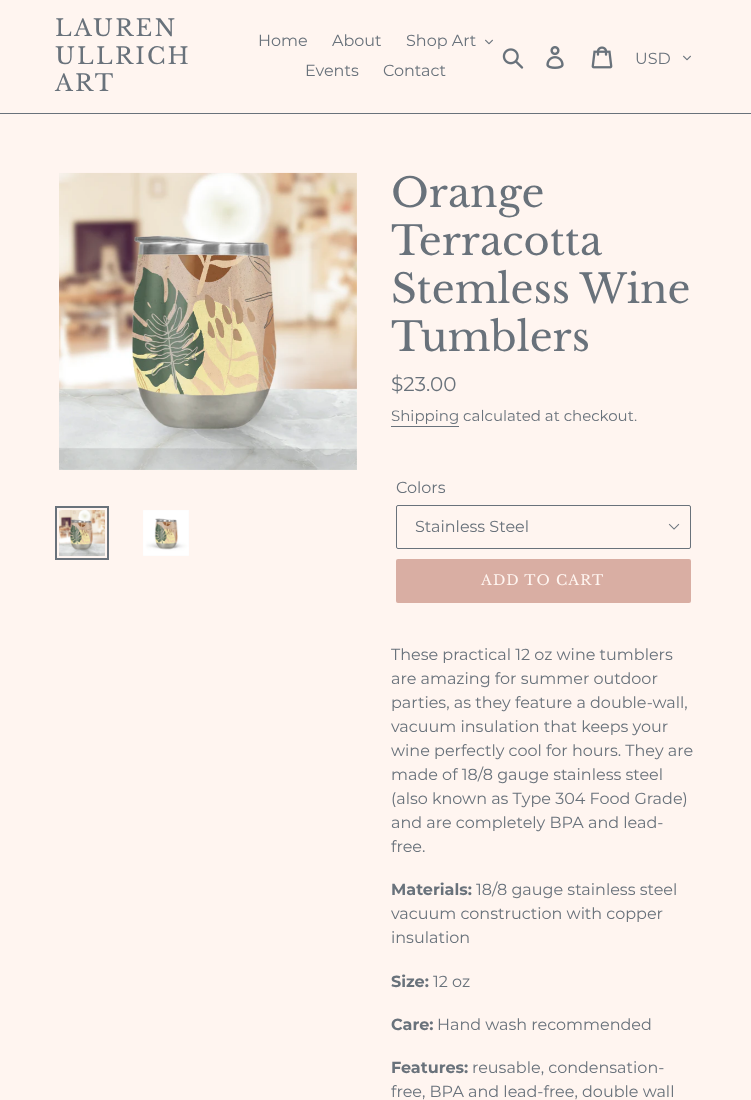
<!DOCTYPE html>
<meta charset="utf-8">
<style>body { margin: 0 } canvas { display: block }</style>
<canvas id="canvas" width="751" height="1100"></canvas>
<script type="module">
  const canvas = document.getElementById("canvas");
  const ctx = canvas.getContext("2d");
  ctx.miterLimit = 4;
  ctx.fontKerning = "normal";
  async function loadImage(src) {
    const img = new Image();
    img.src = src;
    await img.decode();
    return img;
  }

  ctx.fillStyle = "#fff5f0";
  ctx.fillRect(0, 0, 751, 1100);
  ctx.fillStyle = "#69727b";
  ctx.fillRect(0, 113, 751, 1);
  ctx.letterSpacing = "2.25px";
  ctx.font = "23px Libre Baskerville";
  ctx.fillText("LAUREN", 55, 36);
  ctx.fillText("ULLRICH", 55, 64);
  ctx.fillText("ART", 55, 91);
  ctx.letterSpacing = "0px";
  ctx.font = "16px Montserrat";
  ctx.fillText("Home", 258, 46);
  ctx.fillText("About", 332, 46);
  ctx.fillText("Shop Art", 406, 46);
  ctx.drawImage(await loadImage("img1.png"), 485, 39, 8, 6);
  ctx.fillText("Events", 305, 76);
  ctx.fillText("Contact", 383, 76);
  ctx.drawImage(await loadImage("img2.png"), 502, 48, 22, 21);
  ctx.drawImage(await loadImage("img3.png"), 546, 46, 18, 23);
  ctx.drawImage(await loadImage("img4.png"), 591, 46, 22, 23);
  ctx.fillText("USD", 635, 64);
  ctx.drawImage(await loadImage("img1.png"), 683, 55, 8, 6);
  ctx.drawImage(await loadImage("img5.png"), 59, 172, 298, 298);
  ctx.strokeStyle = "#69727b";
  ctx.lineWidth = 2;
  ctx.strokeRect(56, 507, 52, 52);
  ctx.drawImage(await loadImage("img6.png"), 59, 510, 46, 46);
  ctx.drawImage(await loadImage("img7.png"), 143, 510, 46, 46);
  ctx.font = "40px Libre Baskerville";
  ctx.fillText("Orange", 391, 207);
  ctx.fillText("Terracotta", 391, 255);
  ctx.fillText("Stemless Wine", 391, 303);
  ctx.fillText("Tumblers", 391, 351);
  ctx.font = "20px Montserrat";
  ctx.fillText("$23.00", 391, 391);
  ctx.font = "15px Montserrat";
  ctx.fillText("Shipping calculated at checkout.", 391, 421);
  ctx.fillRect(391, 426, 68, 1);
  ctx.font = "16px Montserrat";
  ctx.fillText("Colors", 396, 493);
  ctx.drawImage(await loadImage("img8.png"), 668, 523, 12, 7);
  ctx.beginPath();
  ctx.roundRect(396.5, 505.5, 294, 43, 1.5);
  ctx.lineWidth = 1;
  ctx.stroke();
  ctx.fillText("Stainless Steel", 415, 532);
  ctx.fillStyle = "#d9aea3";
  ctx.beginPath();
  ctx.roundRect(396, 559, 295, 44, 2);
  ctx.fill();
  ctx.letterSpacing = "1.1px";
  ctx.font = "14px Libre Baskerville";
  ctx.fillStyle = "#fff5f0";
  ctx.fillText("ADD TO CART", 481, 585);
  ctx.letterSpacing = "0px";
  ctx.font = "16px Montserrat";
  ctx.fillStyle = "#69727b";
  ctx.fillText("These practical 12 oz wine tumblers", 391, 660);
  ctx.fillText("are amazing for summer outdoor", 391, 684);
  ctx.fillText("parties, as they feature a double-wall,", 391, 708);
  ctx.fillText("vacuum insulation that keeps your", 391, 732);
  ctx.fillText("wine perfectly cool for hours. They are", 391, 756);
  ctx.fillText("made of 18/8 gauge stainless steel", 391, 780);
  ctx.fillText("(also known as Type 304 Food Grade)", 391, 804);
  ctx.fillText("and are completely BPA and lead-", 391, 828);
  ctx.fillText("free.", 391, 852);
  ctx.font = "bold 16px Montserrat";
  ctx.fillText("Materials:", 391, 895);
  ctx.font = "16px Montserrat";
  ctx.fillText("18/8 gauge stainless steel", 476, 895);
  ctx.fillText("vacuum construction with copper", 391, 919);
  ctx.fillText("insulation", 391, 943);
  ctx.font = "bold 16px Montserrat";
  ctx.fillText("Size:", 391, 987);
  ctx.font = "16px Montserrat";
  ctx.fillText("12 oz", 433, 987);
  ctx.font = "bold 16px Montserrat";
  ctx.fillText("Care:", 391, 1030);
  ctx.font = "16px Montserrat";
  ctx.fillText("Hand wash recommended", 437, 1030);
  ctx.font = "bold 16px Montserrat";
  ctx.fillText("Features:", 391, 1073);
  ctx.font = "16px Montserrat";
  ctx.fillText("reusable, condensation-", 472, 1073);
  ctx.fillText("free, BPA and lead-free, double wall", 391, 1097);
</script>
